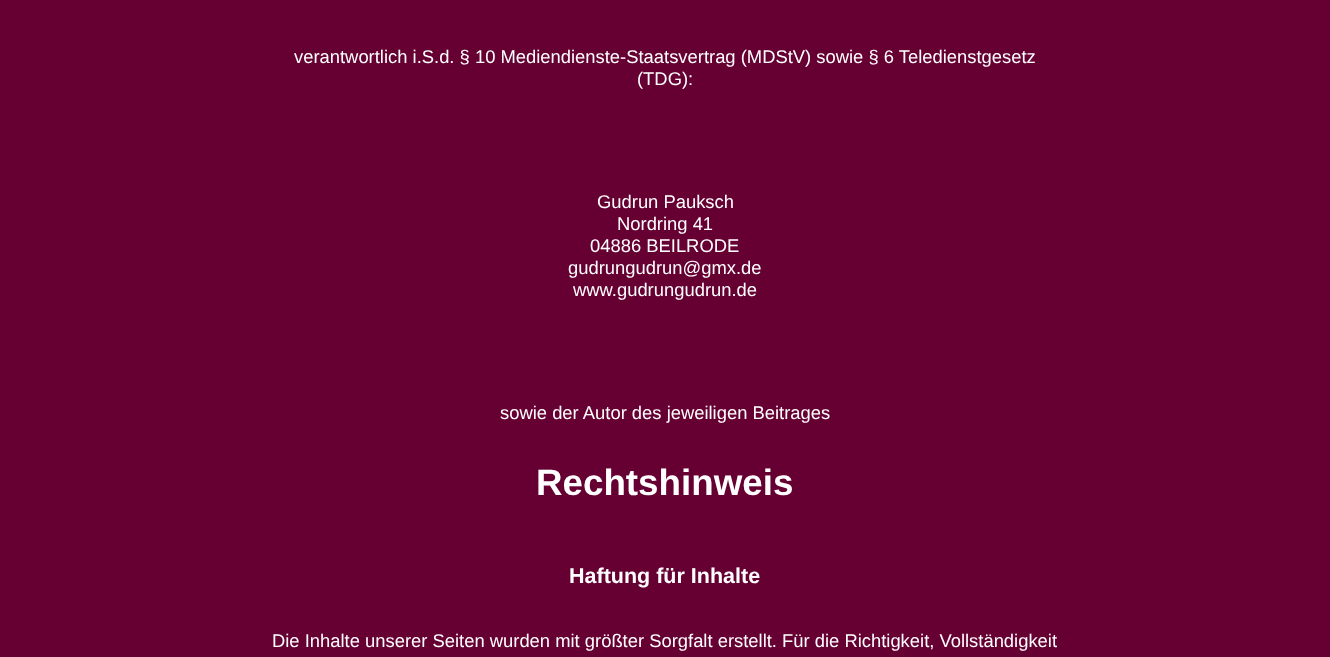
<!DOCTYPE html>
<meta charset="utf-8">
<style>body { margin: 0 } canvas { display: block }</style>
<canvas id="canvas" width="1330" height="657"></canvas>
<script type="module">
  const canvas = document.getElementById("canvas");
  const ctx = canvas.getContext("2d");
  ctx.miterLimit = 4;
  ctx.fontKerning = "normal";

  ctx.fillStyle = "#660033";
  ctx.fillRect(0, 0, 1330, 657);
  ctx.font = "18.4px Liberation Sans";
  ctx.fillStyle = "#ffffff";
  ctx.fillText("verantwortlich i.S.d. § 10 Mediendienste-Staatsvertrag (MDStV) sowie § 6 Teledienstgesetz", 294, 63);
  ctx.fillText("(TDG):", 637, 85);
  ctx.fillText("Gudrun Pauksch", 597, 208);
  ctx.fillText("Nordring 41", 617, 230);
  ctx.fillText("04886 BEILRODE", 590, 252);
  ctx.fillText("gudrungudrun@gmx.de", 568, 274);
  ctx.fillText("www.gudrungudrun.de", 573, 296);
  ctx.fillText("sowie der Autor des jeweiligen Beitrages", 500, 419);
  ctx.font = "bold 36.75px Liberation Sans";
  ctx.fillText("Rechtshinweis", 536, 495);
  ctx.font = "bold 21.5px Liberation Sans";
  ctx.fillText("Haftung für Inhalte", 569, 583);
  ctx.font = "18.4px Liberation Sans";
  ctx.fillText("Die Inhalte unserer Seiten wurden mit größter Sorgfalt erstellt. Für die Richtigkeit, Vollständigkeit", 272, 647);
</script>
